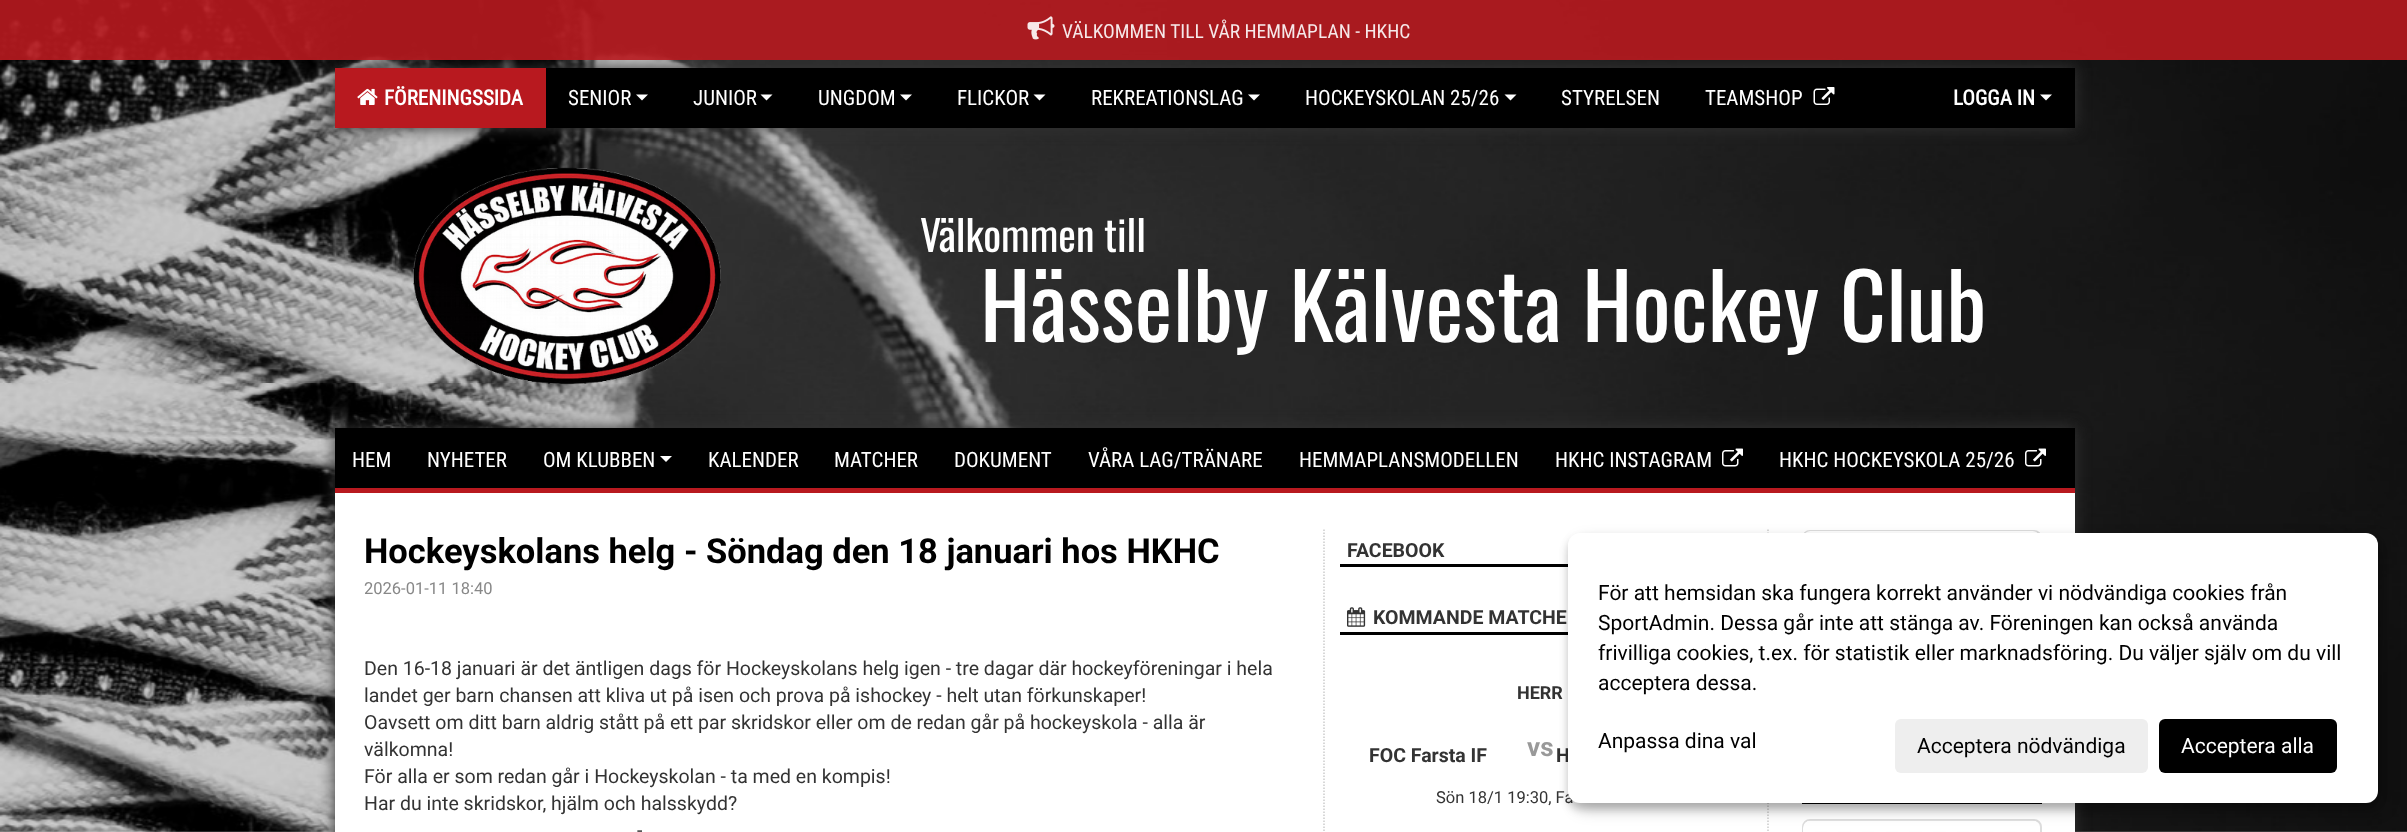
<!DOCTYPE html>
<meta charset="utf-8">
<style>body { margin: 0 } canvas { display: block }</style>
<canvas id="canvas" width="2407" height="832"></canvas>
<script type="module">
  const canvas = document.getElementById("canvas");
  const ctx = canvas.getContext("2d");
  ctx.miterLimit = 4;
  ctx.fontKerning = "normal";
  async function loadImage(src) {
    const img = new Image();
    img.src = src;
    await img.decode();
    return img;
  }

  ctx.fillStyle = "#ffffff";
  ctx.fillRect(0, 0, 2407, 832);
  ctx.drawImage(await loadImage("img1.png"), 0, 0, 2407, 832);
  ctx.fillStyle = "#333333";
  ctx.filter = "blur(7.5px)";
  ctx.beginPath();
  ctx.rect(335, 68, 1740, 60);
  ctx.fill();
  ctx.filter = "none";
  ctx.fillStyle = "rgba(184, 25, 31, 0.9)";
  ctx.fillRect(0, 0, 2407, 60);
  ctx.drawImage(await loadImage("img2.png"), 1027, 16, 28, 24);
  ctx.font = "19.5px Roboto Condensed";
  ctx.fillStyle = "#f6e8e9";
  ctx.fillText("VÄLKOMMEN TILL VÅR HEMMAPLAN - HKHC", 1062, 38);
  ctx.fillStyle = "#000000";
  ctx.fillRect(546, 68, 1529, 60);
  ctx.fillStyle = "#b8191f";
  ctx.fillRect(335, 68, 211, 60);
  ctx.drawImage(await loadImage("img3.png"), 357, 88, 21, 17);
  ctx.font = "bold 21px Roboto Condensed";
  ctx.fillStyle = "#ffffff";
  ctx.fillText("FÖRENINGSSIDA", 384, 105);
  ctx.font = "21px Roboto Condensed";
  ctx.fillText("SENIOR", 568, 105);
  ctx.beginPath();
  ctx.moveTo(636, 94.5);
  ctx.lineTo(648, 94.5);
  ctx.lineTo(642, 100.5);
  ctx.closePath();
  ctx.fill();
  ctx.fillText("JUNIOR", 693, 105);
  ctx.beginPath();
  ctx.moveTo(760.5, 94.5);
  ctx.lineTo(772.5, 94.5);
  ctx.lineTo(766.5, 100.5);
  ctx.closePath();
  ctx.fill();
  ctx.fillText("UNGDOM", 818, 105);
  ctx.beginPath();
  ctx.moveTo(900, 94.5);
  ctx.lineTo(912, 94.5);
  ctx.lineTo(906, 100.5);
  ctx.closePath();
  ctx.fill();
  ctx.fillText("FLICKOR", 957, 105);
  ctx.beginPath();
  ctx.moveTo(1033.5, 94.5);
  ctx.lineTo(1045.5, 94.5);
  ctx.lineTo(1039.5, 100.5);
  ctx.closePath();
  ctx.fill();
  ctx.fillText("REKREATIONSLAG", 1091, 105);
  ctx.beginPath();
  ctx.moveTo(1248, 94.5);
  ctx.lineTo(1260, 94.5);
  ctx.lineTo(1254, 100.5);
  ctx.closePath();
  ctx.fill();
  ctx.fillText("HOCKEYSKOLAN 25/26", 1305, 105);
  ctx.beginPath();
  ctx.moveTo(1504.5, 94.5);
  ctx.lineTo(1516.5, 94.5);
  ctx.lineTo(1510.5, 100.5);
  ctx.closePath();
  ctx.fill();
  ctx.fillText("STYRELSEN", 1561, 105);
  ctx.fillText("TEAMSHOP", 1705, 105);
  ctx.drawImage(await loadImage("img4.png"), 1813, 87, 22, 18);
  ctx.font = "bold 21px Roboto Condensed";
  ctx.fillText("LOGGA IN", 1953, 105);
  ctx.beginPath();
  ctx.moveTo(2040, 94.5);
  ctx.lineTo(2052, 94.5);
  ctx.lineTo(2046, 100.5);
  ctx.closePath();
  ctx.fill();
  ctx.drawImage(await loadImage("img5.png"), 413, 167, 308, 218);
  ctx.font = "42px Oswald";
  ctx.fillText("Välkommen till", 920, 252);
  ctx.font = "90px Oswald";
  ctx.fillText("Hässelby Kälvesta Hockey Club", 980, 342);
  ctx.fillStyle = "#333333";
  ctx.filter = "blur(7.5px)";
  ctx.beginPath();
  ctx.rect(335, 428, 1740, 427);
  ctx.fill();
  ctx.filter = "none";
  ctx.fillStyle = "#ffffff";
  ctx.fillRect(335, 493, 1740, 339);
  ctx.fillStyle = "#000000";
  ctx.fillRect(335, 428, 1740, 60);
  ctx.font = "21px Roboto Condensed";
  ctx.fillStyle = "#ffffff";
  ctx.fillText("HEM", 352, 467);
  ctx.fillText("NYHETER", 427, 467);
  ctx.fillText("OM KLUBBEN", 543, 467);
  ctx.beginPath();
  ctx.moveTo(660, 456);
  ctx.lineTo(672, 456);
  ctx.lineTo(666, 462);
  ctx.closePath();
  ctx.fill();
  ctx.fillText("KALENDER", 708, 467);
  ctx.fillText("MATCHER", 834, 467);
  ctx.fillText("DOKUMENT", 954, 467);
  ctx.fillText("VÅRA LAG/TRÄNARE", 1088, 467);
  ctx.fillText("HEMMAPLANSMODELLEN", 1299, 467);
  ctx.fillText("HKHC INSTAGRAM", 1555, 467);
  ctx.drawImage(await loadImage("img6.png"), 1722, 448, 21, 19);
  ctx.fillText("HKHC HOCKEYSKOLA 25/26", 1779, 467);
  ctx.drawImage(await loadImage("img6.png"), 2025, 448, 21, 19);
  ctx.fillStyle = "#b8191f";
  ctx.fillRect(335, 488, 1740, 5);
  ctx.font = "bold 34.5px Roboto";
  ctx.fillStyle = "#000000";
  ctx.fillText("Hockeyskolans helg - Söndag den 18 januari hos HKHC", 364, 563);
  ctx.font = "16.5px Roboto";
  ctx.fillStyle = "#888888";
  ctx.fillText("2026-01-11 18:40", 364, 594);
  ctx.font = "19.5px Roboto";
  ctx.fillStyle = "#333333";
  ctx.fillText("Den 16-18 januari är det äntligen dags för Hockeyskolans helg igen - tre dagar där hockeyföreningar i hela", 364, 675);
  ctx.fillText("landet ger barn chansen att kliva ut på isen och prova på ishockey - helt utan förkunskaper!", 364, 702);
  ctx.fillText("Oavsett om ditt barn aldrig stått på ett par skridskor eller om de redan går på hockeyskola - alla är", 364, 729);
  ctx.fillText("välkomna!", 364, 756);
  ctx.fillText("För alla er som redan går i Hockeyskolan - ta med en kompis!", 364, 783);
  ctx.fillText("Har du inte skridskor, hjälm och halsskydd?", 364, 810);
  ctx.fillText("-", 637, 837);
  ctx.beginPath();
  ctx.moveTo(1324, 529.5);
  ctx.lineTo(1324, 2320.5);
  ctx.strokeStyle = "#cccccc";
  ctx.lineWidth = 1.5;
  ctx.setLineDash([1.5, 1.5]);
  ctx.stroke();
  ctx.fillStyle = "#000000";
  ctx.fillRect(1340, 564, 228, 3);
  ctx.font = "bold 19.5px Roboto";
  ctx.fillStyle = "#333333";
  ctx.fillText("FACEBOOK", 1347, 557);
  ctx.fillStyle = "#000000";
  ctx.fillRect(1340, 632, 228, 3);
  ctx.drawImage(await loadImage("img7.png"), 1347, 607, 19, 20);
  ctx.fillStyle = "#333333";
  ctx.fillText("KOMMANDE MATCHE", 1373, 624);
  ctx.font = "bold 18px Roboto";
  ctx.fillText("HERR", 1517, 699);
  ctx.font = "bold 19.5px Roboto";
  ctx.fillText("FOC Farsta IF", 1369, 762);
  ctx.font = "bold 26px Roboto";
  ctx.fillStyle = "#999999";
  ctx.fillText("vs", 1527, 756);
  ctx.font = "bold 19.5px Roboto";
  ctx.fillStyle = "#333333";
  ctx.fillText("H", 1556, 762);
  ctx.font = "16.5px Roboto";
  ctx.fillText("Sön 18/1 19:30, Fa", 1436, 803);
  ctx.beginPath();
  ctx.moveTo(1768, 529.5);
  ctx.lineTo(1768, 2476.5);
  ctx.stroke();
  ctx.beginPath();
  ctx.roundRect(1803, 531, 238, 185, 7);
  ctx.strokeStyle = "#dddddd";
  ctx.lineWidth = 2;
  ctx.setLineDash([]);
  ctx.stroke();
  ctx.drawImage(await loadImage("img8.png"), 1805, 531, 233, 2);
  ctx.fillStyle = "#000000";
  ctx.fillRect(1802, 803, 240, 1);
  ctx.beginPath();
  ctx.roundRect(1803, 820, 238, 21, 7);
  ctx.stroke();
  ctx.drawImage(await loadImage("img9.png"), 1803, 820, 233, 12);
  ctx.fillStyle = "rgba(0, 0, 0, 0.19)";
  ctx.filter = "blur(7.5px)";
  ctx.beginPath();
  ctx.roundRect(1575, 540, 810, 270, 12);
  ctx.fill();
  ctx.filter = "none";
  ctx.fillStyle = "rgba(0, 0, 0, 0.2)";
  ctx.filter = "blur(4.5px)";
  ctx.beginPath();
  ctx.roundRect(1568, 539, 810, 270, 12);
  ctx.fill();
  ctx.filter = "none";
  ctx.fillStyle = "#ffffff";
  ctx.beginPath();
  ctx.roundRect(1568, 533, 810, 270, 12);
  ctx.fill();
  ctx.font = "21px Roboto";
  ctx.fillStyle = "#000000";
  ctx.fillText("För att hemsidan ska fungera korrekt använder vi nödvändiga cookies från", 1598, 600);
  ctx.fillText("SportAdmin. Dessa går inte att stänga av. Föreningen kan också använda", 1598, 630);
  ctx.fillText("frivilliga cookies, t.ex. för statistik eller marknadsföring. Du väljer själv om du vill", 1598, 660);
  ctx.fillText("acceptera dessa.", 1598, 690);
  ctx.fillText("Anpassa dina val", 1598, 748);
  ctx.fillStyle = "#eeeeee";
  ctx.beginPath();
  ctx.roundRect(1895, 719, 253, 54, 6);
  ctx.fill();
  ctx.fillStyle = "#000000";
  ctx.fillText("Acceptera nödvändiga", 1917, 753);
  ctx.beginPath();
  ctx.roundRect(2159, 719, 178, 54, 6);
  ctx.fill();
  ctx.fillStyle = "#ffffff";
  ctx.fillText("Acceptera alla", 2181, 753);
</script>
